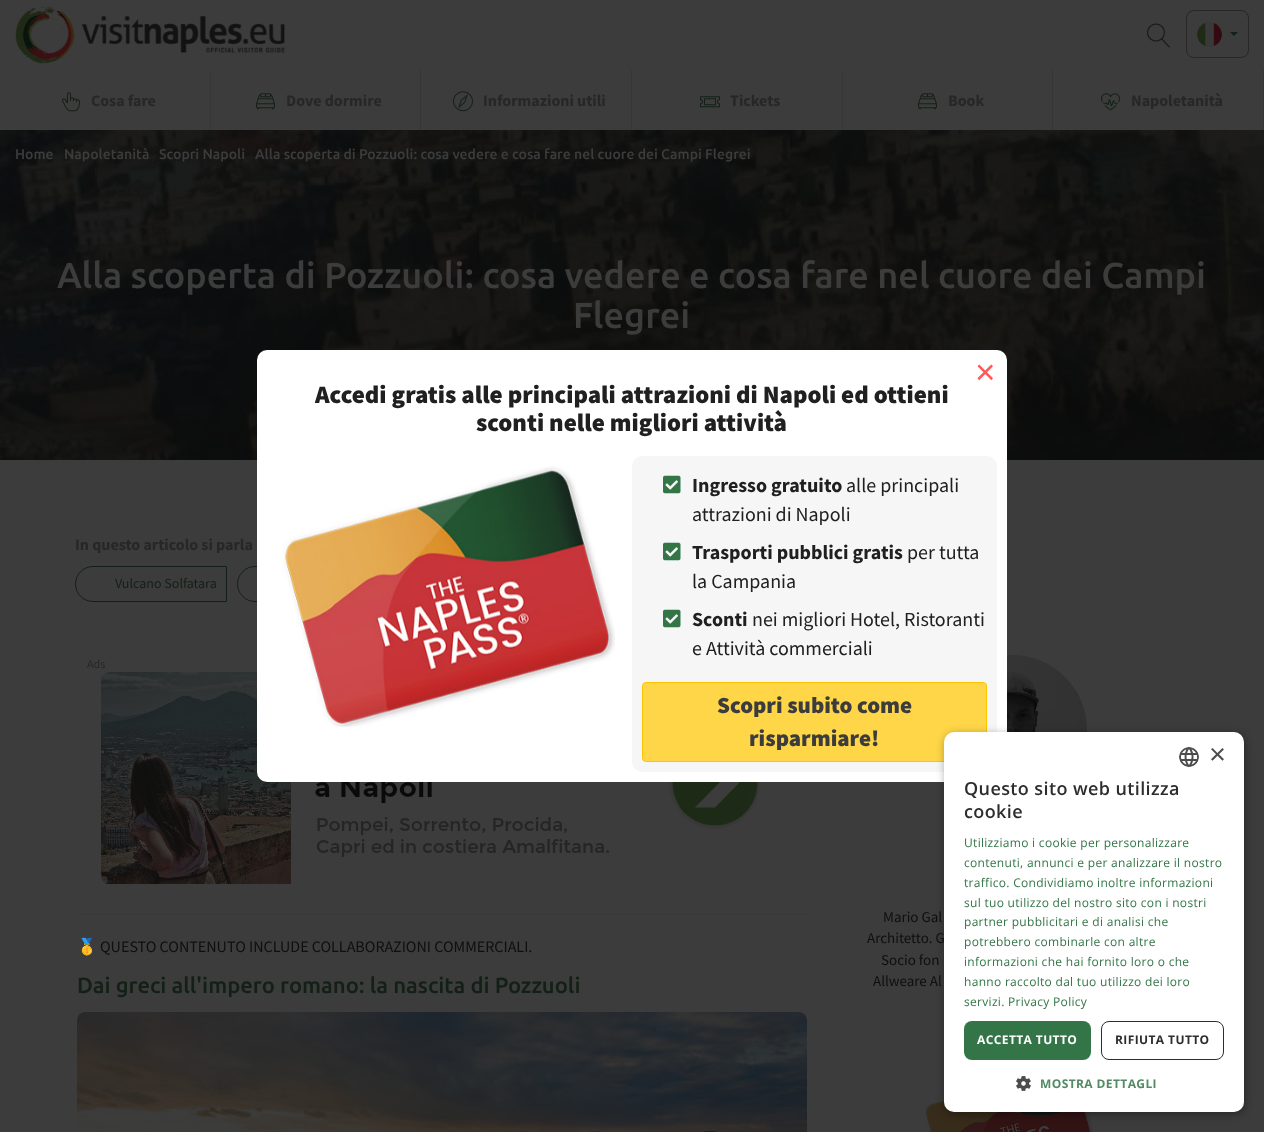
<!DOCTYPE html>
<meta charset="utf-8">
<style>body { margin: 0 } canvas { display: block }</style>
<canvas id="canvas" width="1264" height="1132"></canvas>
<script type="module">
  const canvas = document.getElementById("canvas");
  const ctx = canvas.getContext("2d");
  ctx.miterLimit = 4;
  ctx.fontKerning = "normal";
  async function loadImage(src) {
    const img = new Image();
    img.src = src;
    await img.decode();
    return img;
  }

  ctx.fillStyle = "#3c3c3c";
  ctx.fillRect(0, 0, 1264, 1132);
  ctx.drawImage(await loadImage("img1.png"), 15, 6, 270, 58);
  ctx.drawImage(await loadImage("img2.png"), 1147, 23, 23, 25);
  ctx.beginPath();
  ctx.roundRect(1186.5, 10.5, 62, 47, 7.5);
  ctx.strokeStyle = "#272727";
  ctx.stroke();
  ctx.drawImage(await loadImage("img3.png"), 1197, 22, 25, 25);
  ctx.fillStyle = "#132017";
  ctx.beginPath();
  ctx.moveTo(1230, 32);
  ctx.lineTo(1238, 32);
  ctx.lineTo(1234, 36);
  ctx.closePath();
  ctx.fill();
  ctx.fillStyle = "#353637";
  ctx.fillRect(210, 70, 1, 60);
  ctx.drawImage(await loadImage("img4.png"), 62, 92, 18, 20);
  ctx.font = "bold 16px Source Sans Pro";
  ctx.fillStyle = "#272727";
  ctx.fillText("Cosa fare", 91, 106);
  ctx.fillStyle = "#353637";
  ctx.fillRect(420, 70, 1, 60);
  ctx.drawImage(await loadImage("img5.png"), 256, 93, 19, 17);
  ctx.fillStyle = "#272727";
  ctx.fillText("Dove dormire", 286, 106);
  ctx.fillStyle = "#353637";
  ctx.fillRect(631, 70, 1, 60);
  ctx.drawImage(await loadImage("img6.png"), 453, 91, 20, 21);
  ctx.fillStyle = "#272727";
  ctx.fillText("Informazioni utili", 483, 106);
  ctx.fillStyle = "#353637";
  ctx.fillRect(842, 70, 1, 60);
  ctx.drawImage(await loadImage("img7.png"), 700, 96, 20, 12);
  ctx.fillStyle = "#272727";
  ctx.fillText("Tickets", 730, 106);
  ctx.fillStyle = "#353637";
  ctx.fillRect(1052, 70, 1, 60);
  ctx.drawImage(await loadImage("img5.png"), 918, 93, 19, 17);
  ctx.fillStyle = "#272727";
  ctx.fillText("Book", 948, 106);
  ctx.fillStyle = "#353637";
  ctx.fillRect(1263, 70, 1, 60);
  ctx.drawImage(await loadImage("img8.png"), 1101, 93, 19, 18);
  ctx.fillStyle = "#272727";
  ctx.fillText("Napoletanità", 1131, 106);
  ctx.drawImage(await loadImage("img9.png"), 0, 130, 1264, 330);
  ctx.font = "500 14px Ubuntu";
  ctx.fillStyle = "#3c3c3c";
  ctx.fillText("Home", 15, 159);
  ctx.drawImage(await loadImage("img10.png"), 56, 150, 5, 10);
  ctx.fillText("Napoletanità", 64, 159);
  ctx.drawImage(await loadImage("img11.png"), 151, 150, 6, 10);
  ctx.fillText("Scopri Napoli", 159, 159);
  ctx.drawImage(await loadImage("img12.png"), 247, 150, 6, 10);
  ctx.fillText("Alla scoperta di Pozzuoli: cosa vedere e cosa fare nel cuore dei Campi Flegrei", 255, 159);
  ctx.font = "500 36px Ubuntu";
  ctx.fillText("Alla scoperta di Pozzuoli: cosa vedere e cosa fare nel cuore dei Campi", 57, 288);
  ctx.fillText("Flegrei", 573, 328);
  ctx.font = "bold 16px Source Sans Pro";
  ctx.fillStyle = "#272727";
  ctx.fillText("In questo articolo si parla", 75, 550);
  ctx.beginPath();
  ctx.roundRect(75.5, 566.5, 151, 35, [17.5, 0, 0, 17.5]);
  ctx.strokeStyle = "#132017";
  ctx.stroke();
  ctx.font = "14px Source Sans Pro";
  ctx.fillStyle = "#132017";
  ctx.fillText("Vulcano Solfatara", 115, 588);
  ctx.beginPath();
  ctx.roundRect(237.5, 566.5, 145, 35, [17.5, 0, 0, 17.5]);
  ctx.stroke();
  ctx.font = "12px Source Sans Pro";
  ctx.fillStyle = "#272727";
  ctx.fillText("Ads", 87, 668);
  ctx.drawImage(await loadImage("img13.png"), 101, 672, 682, 212);
  ctx.fillStyle = "#383838";
  ctx.fillRect(77, 914, 730, 1);
  ctx.font = "16px Noto Color Emoji";
  ctx.fillStyle = "#0f0f0f";
  ctx.fillText("🥇", 77, 952);
  ctx.font = "16px Source Sans Pro";
  ctx.fillText("QUESTO CONTENUTO INCLUDE COLLABORAZIONI COMMERCIALI.", 100, 952);
  ctx.font = "500 22px Ubuntu";
  ctx.fillStyle = "#132017";
  ctx.fillText("Dai greci all'impero romano: la nascita di Pozzuoli", 77, 993);
  ctx.drawImage(await loadImage("img14.png"), 77, 1012, 730, 120);
  ctx.drawImage(await loadImage("img15.png"), 1007, 655, 80, 77);
  ctx.font = "15px Source Sans Pro";
  ctx.fillStyle = "#0f0f0f";
  ctx.fillText("Mario Gal", 883, 922);
  ctx.fillText("Architetto. G", 867, 943);
  ctx.fillText("Socio fon", 881, 965);
  ctx.fillText("Allweare Al", 873, 986);
  ctx.drawImage(await loadImage("img16.png"), 926, 1101, 168, 31);
  ctx.fillStyle = "#ffffff";
  ctx.beginPath();
  ctx.roundRect(257, 350, 750, 432, 10);
  ctx.fill();
  ctx.font = "35px Liberation Sans";
  ctx.fillStyle = "#ff5959";
  ctx.fillText("×", 975, 384);
  ctx.font = "900 25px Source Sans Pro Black";
  ctx.fillStyle = "#202020";
  ctx.fillText("Accedi gratis alle principali attrazioni di Napoli ed ottieni", 315, 403);
  ctx.fillText("sconti nelle migliori attività", 476, 431);
  ctx.drawImage(await loadImage("img17.png"), 282, 466, 333, 261);
  ctx.fillStyle = "#f6f6f6";
  ctx.beginPath();
  ctx.roundRect(632, 456, 365, 316, 10);
  ctx.fill();
  ctx.drawImage(await loadImage("img18.png"), 663, 475, 18, 19);
  ctx.font = "bold 20px Source Sans Pro";
  ctx.fillStyle = "#202020";
  ctx.fillText("Ingresso gratuito", 692, 492);
  ctx.font = "20px Source Sans Pro";
  ctx.fillText("alle principali", 846, 492);
  ctx.fillText("attrazioni di Napoli", 692, 521);
  ctx.drawImage(await loadImage("img18.png"), 663, 542, 18, 19);
  ctx.font = "bold 20px Source Sans Pro";
  ctx.fillText("Trasporti pubblici gratis", 692, 559);
  ctx.font = "20px Source Sans Pro";
  ctx.fillText("per tutta", 907, 559);
  ctx.fillText("la Campania", 692, 588);
  ctx.drawImage(await loadImage("img18.png"), 663, 609, 18, 19);
  ctx.font = "bold 20px Source Sans Pro";
  ctx.fillText("Sconti", 692, 626);
  ctx.font = "20px Source Sans Pro";
  ctx.fillText("nei migliori Hotel, Ristoranti", 752, 626);
  ctx.fillText("e Attività commerciali", 692, 655);
  ctx.fillStyle = "#ffd647";
  ctx.beginPath();
  ctx.roundRect(642.5, 682.5, 344, 79, 3.5);
  ctx.fill();
  ctx.strokeStyle = "#fdc500";
  ctx.stroke();
  ctx.font = "900 23px Source Sans Pro Black";
  ctx.fillStyle = "#3c3c3c";
  ctx.fillText("Scopri subito come", 717, 713);
  ctx.fillText("risparmiare!", 749, 746);
  ctx.fillStyle = "rgba(0, 0, 0, 0.35)";
  ctx.filter = "blur(4px)";
  ctx.beginPath();
  ctx.roundRect(945, 734, 300, 380, 10);
  ctx.fill();
  ctx.filter = "none";
  ctx.fillStyle = "#ffffff";
  ctx.beginPath();
  ctx.roundRect(944, 732, 300, 380, 10);
  ctx.fill();
  ctx.drawImage(await loadImage("img19.png"), 1179, 747, 20, 20);
  ctx.font = "29px Liberation Sans";
  ctx.fillStyle = "#4d4d4d";
  ctx.fillText("×", 1209, 764);
  ctx.letterSpacing = "0.4px";
  ctx.font = "600 18px Open Sans";
  ctx.fillStyle = "#2d2d2d";
  ctx.fillText("Questo sito web utilizza", 964, 795);
  ctx.fillText("cookie", 964, 818);
  ctx.letterSpacing = "0.3px";
  ctx.font = "12px Open Sans";
  ctx.fillStyle = "#337547";
  ctx.fillText("Utilizziamo i cookie per personalizzare", 964, 847);
  ctx.fillText("contenuti, annunci e per analizzare il nostro", 964, 867);
  ctx.fillText("traffico. Condividiamo inoltre informazioni", 964, 887);
  ctx.fillText("sul tuo utilizzo del nostro sito con i nostri", 964, 907);
  ctx.fillText("partner pubblicitari e di analisi che", 964, 926);
  ctx.fillText("potrebbero combinarle con altre", 964, 946);
  ctx.fillText("informazioni che hai fornito loro o che", 964, 966);
  ctx.fillText("hanno raccolto dal tuo utilizzo dei loro", 964, 986);
  ctx.fillText("servizi. Privacy Policy", 964, 1006);
  ctx.beginPath();
  ctx.roundRect(964, 1021, 127, 39, 8);
  ctx.fill();
  ctx.letterSpacing = "0.4px";
  ctx.font = "bold 12px Open Sans";
  ctx.fillStyle = "#ffffff";
  ctx.fillText("ACCETTA TUTTO", 977, 1044);
  ctx.beginPath();
  ctx.roundRect(1101.5, 1021.5, 122, 38, 7.5);
  ctx.strokeStyle = "#2d2d2d";
  ctx.stroke();
  ctx.fillStyle = "#2d2d2d";
  ctx.fillText("RIFIUTA TUTTO", 1115, 1044);
  ctx.drawImage(await loadImage("img20.png"), 1016, 1076, 15, 15);
  ctx.fillStyle = "#528a63";
  ctx.fillText("MOSTRA DETTAGLI", 1040, 1088);
</script>
